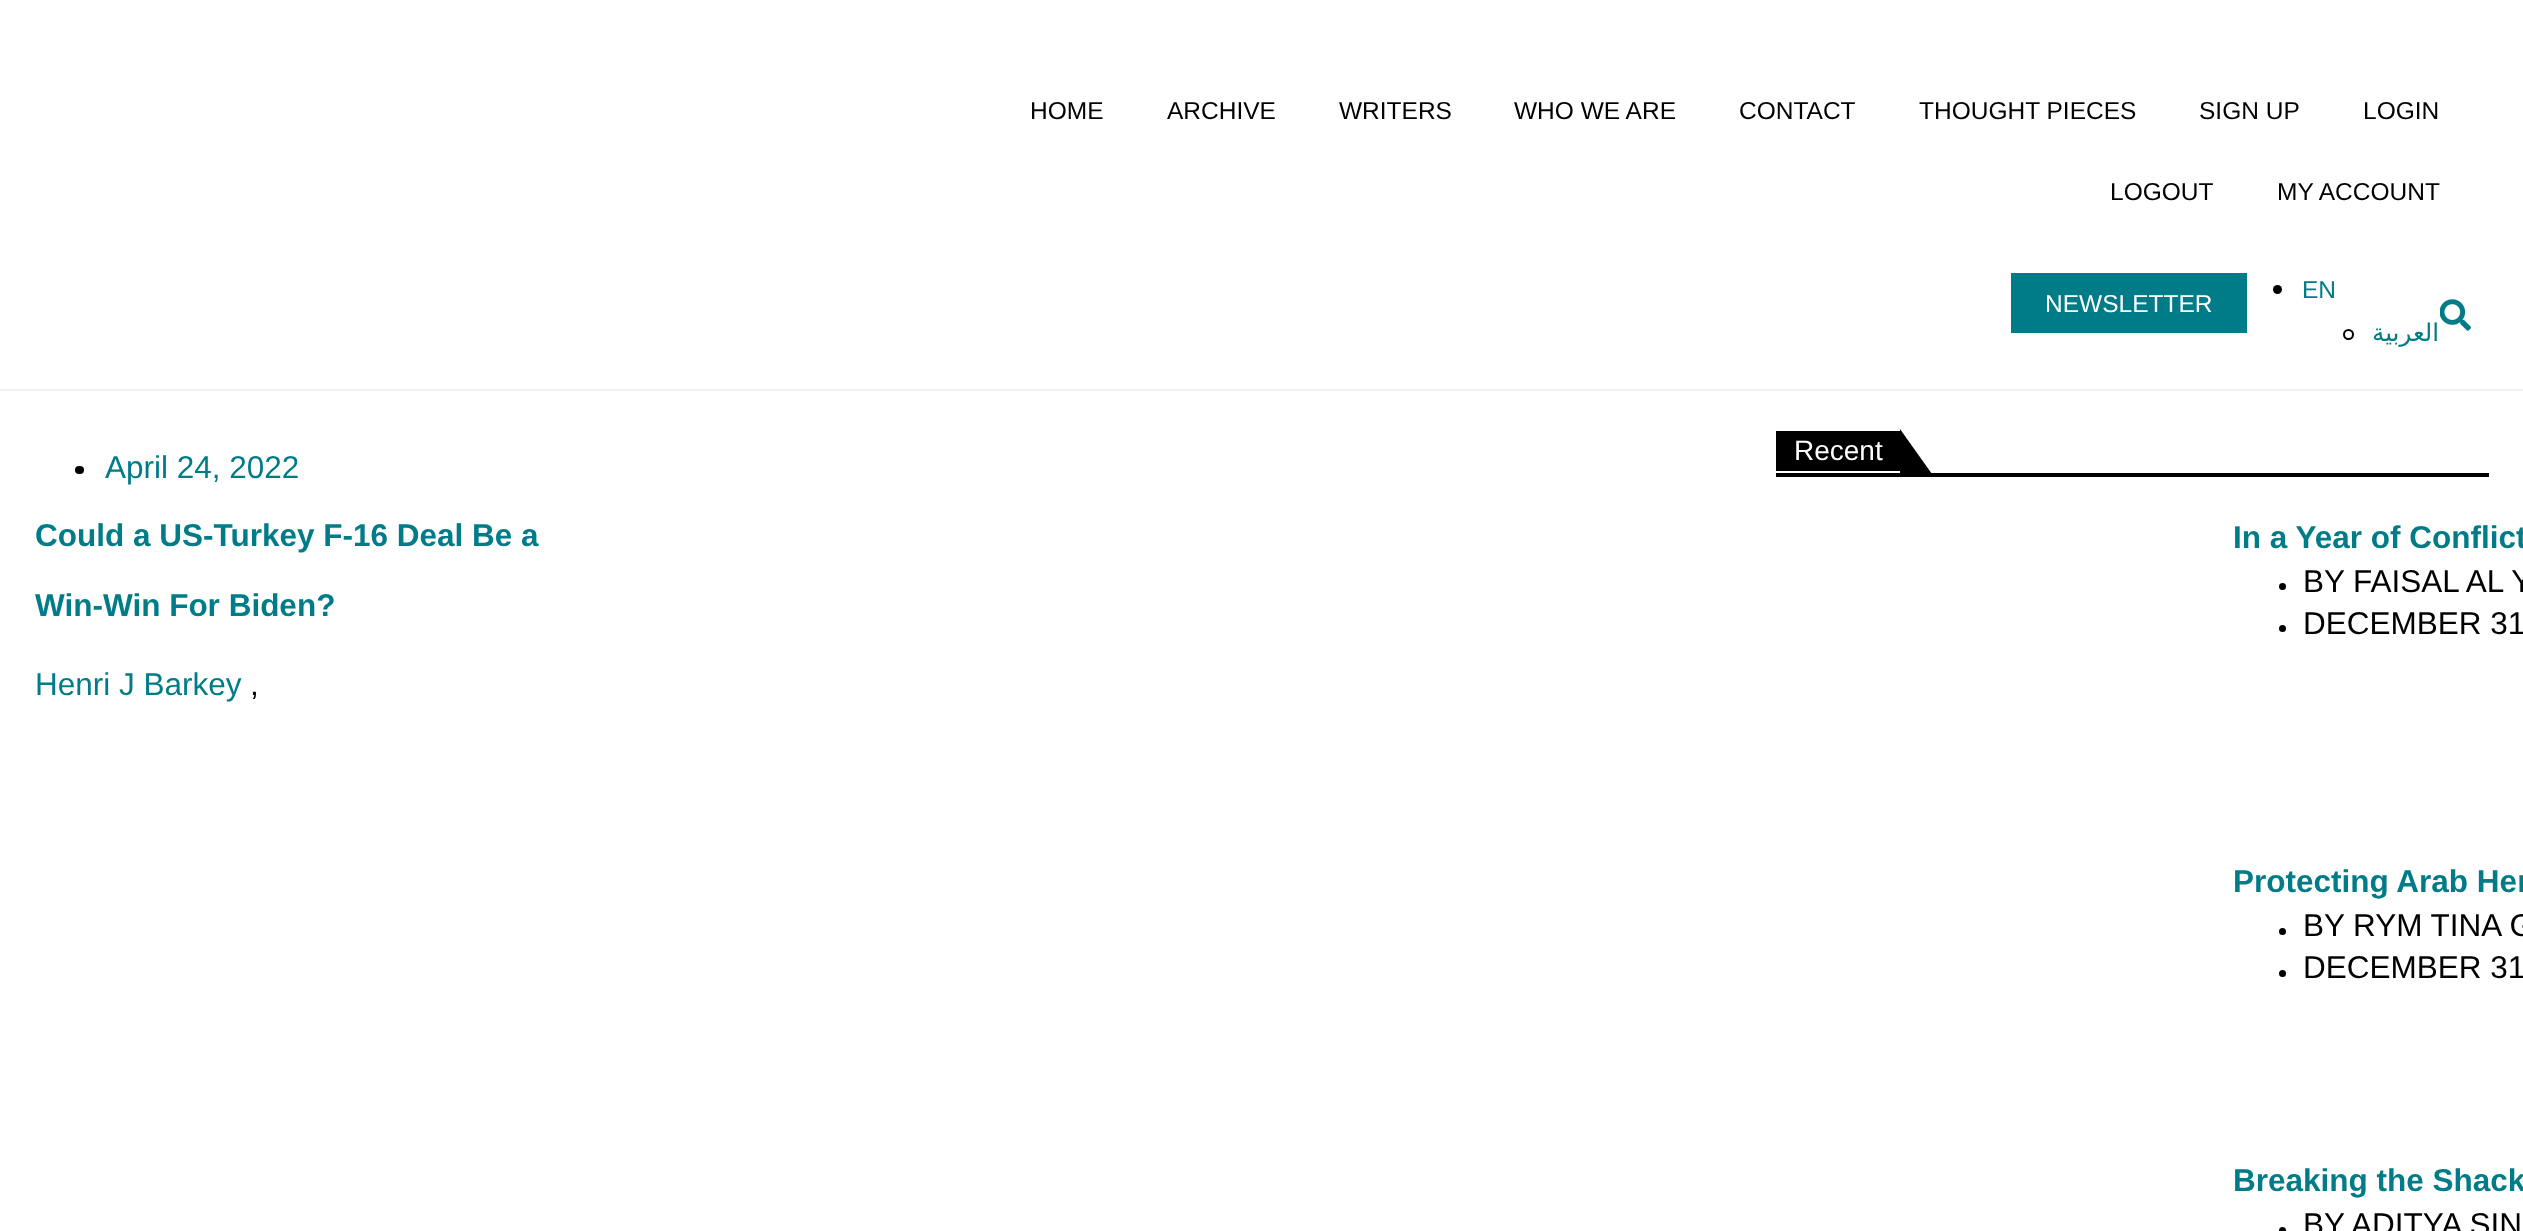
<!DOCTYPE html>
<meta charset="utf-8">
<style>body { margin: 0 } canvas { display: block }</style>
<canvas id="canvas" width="2523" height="1231"></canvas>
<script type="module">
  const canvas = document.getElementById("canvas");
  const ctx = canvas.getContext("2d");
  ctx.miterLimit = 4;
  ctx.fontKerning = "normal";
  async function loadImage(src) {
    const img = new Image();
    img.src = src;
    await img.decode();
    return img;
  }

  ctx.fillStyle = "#ffffff";
  ctx.fillRect(0, 0, 2523, 1231);
  ctx.fillStyle = "#f0f0f0";
  ctx.fillRect(0, 389, 2523, 2);
  ctx.font = "24.5px Liberation Sans";
  ctx.fillStyle = "#000000";
  ctx.fillText("HOME", 1030, 119);
  ctx.fillText("ARCHIVE", 1167, 119);
  ctx.fillText("WRITERS", 1339, 119);
  ctx.fillText("WHO WE ARE", 1514, 119);
  ctx.fillText("CONTACT", 1739, 119);
  ctx.fillText("THOUGHT PIECES", 1919, 119);
  ctx.fillText("SIGN UP", 2199, 119);
  ctx.fillText("LOGIN", 2363, 119);
  ctx.fillText("LOGOUT", 2110, 200);
  ctx.fillText("MY ACCOUNT", 2277, 200);
  ctx.fillStyle = "#007c89";
  ctx.fillRect(2011, 273, 236, 60);
  ctx.fillStyle = "#ffffff";
  ctx.fillText("NEWSLETTER", 2045, 312);
  ctx.fillStyle = "#000000";
  ctx.beginPath();
  ctx.arc(2277.5, 289.5, 4.5, 0, Math.PI * 2);
  ctx.fill();
  ctx.fillStyle = "#007c89";
  ctx.fillText("EN", 2302, 298);
  ctx.beginPath();
  ctx.arc(2348.5, 334.5, 4.5, 0, Math.PI * 2);
  ctx.strokeStyle = "#000000";
  ctx.lineWidth = 2;
  ctx.stroke();
  ctx.direction = "rtl";
  ctx.font = "24.5px DejaVu Sans";
  ctx.fillText("العربية", 2439, 341);
  ctx.drawImage(await loadImage("img1.png"), 2440, 299, 31, 32);
  ctx.fillStyle = "#000000";
  ctx.beginPath();
  ctx.roundRect(75, 466, 9, 8, 4);
  ctx.fill();
  ctx.direction = "ltr";
  ctx.font = "31.5px Liberation Sans";
  ctx.fillStyle = "#007c89";
  ctx.fillText("April 24, 2022", 105, 478);
  ctx.font = "bold 31.5px Liberation Sans";
  ctx.fillText("Could a US-Turkey F-16 Deal Be a", 35, 546);
  ctx.fillText("Win-Win For Biden?", 35, 616);
  ctx.font = "31.5px Liberation Sans";
  ctx.fillText("Henri J Barkey", 35, 695);
  ctx.fillStyle = "#000000";
  ctx.fillText(",", 250, 695);
  ctx.fillRect(1776, 473, 713, 4);
  ctx.fillRect(1776, 431, 124, 40);
  ctx.font = "28px Liberation Sans";
  ctx.fillStyle = "#ffffff";
  ctx.fillText("Recent", 1794, 460);
  ctx.fillStyle = "#000000";
  ctx.beginPath();
  ctx.moveTo(1900, 474);
  ctx.lineTo(1900, 429);
  ctx.lineTo(1932, 474);
  ctx.closePath();
  ctx.fill();
  ctx.font = "bold 31.5px Liberation Sans";
  ctx.fillStyle = "#007c89";
  ctx.fillText("In a Year of Conflict", 2233, 548);
  ctx.fillStyle = "#000000";
  ctx.beginPath();
  ctx.arc(2282.5, 586.5, 3.5, 0, Math.PI * 2);
  ctx.fill();
  ctx.font = "31.5px Liberation Sans";
  ctx.fillText("BY", 2303, 592);
  ctx.fillText("FAISAL AL Y", 2353, 592);
  ctx.beginPath();
  ctx.arc(2282.5, 628.5, 3.5, 0, Math.PI * 2);
  ctx.fill();
  ctx.fillText("DECEMBER 31", 2303, 634);
  ctx.font = "bold 31.5px Liberation Sans";
  ctx.fillStyle = "#007c89";
  ctx.fillText("Protecting Arab Her", 2233, 892);
  ctx.fillStyle = "#000000";
  ctx.beginPath();
  ctx.arc(2282.5, 931.5, 3.5, 0, Math.PI * 2);
  ctx.fill();
  ctx.font = "31.5px Liberation Sans";
  ctx.fillText("BY", 2303, 936);
  ctx.fillText("RYM TINA G", 2353, 936);
  ctx.beginPath();
  ctx.arc(2282.5, 973.5, 3.5, 0, Math.PI * 2);
  ctx.fill();
  ctx.fillText("DECEMBER 31", 2303, 978);
  ctx.font = "bold 31.5px Liberation Sans";
  ctx.fillStyle = "#007c89";
  ctx.fillText("Breaking the Shack", 2233, 1191);
  ctx.fillStyle = "#000000";
  ctx.beginPath();
  ctx.arc(2282.5, 1230.5, 3.5, 0, Math.PI * 2);
  ctx.fill();
  ctx.font = "31.5px Liberation Sans";
  ctx.fillText("BY", 2303, 1235);
  ctx.fillText("ADITYA SIN", 2351, 1235);
</script>
